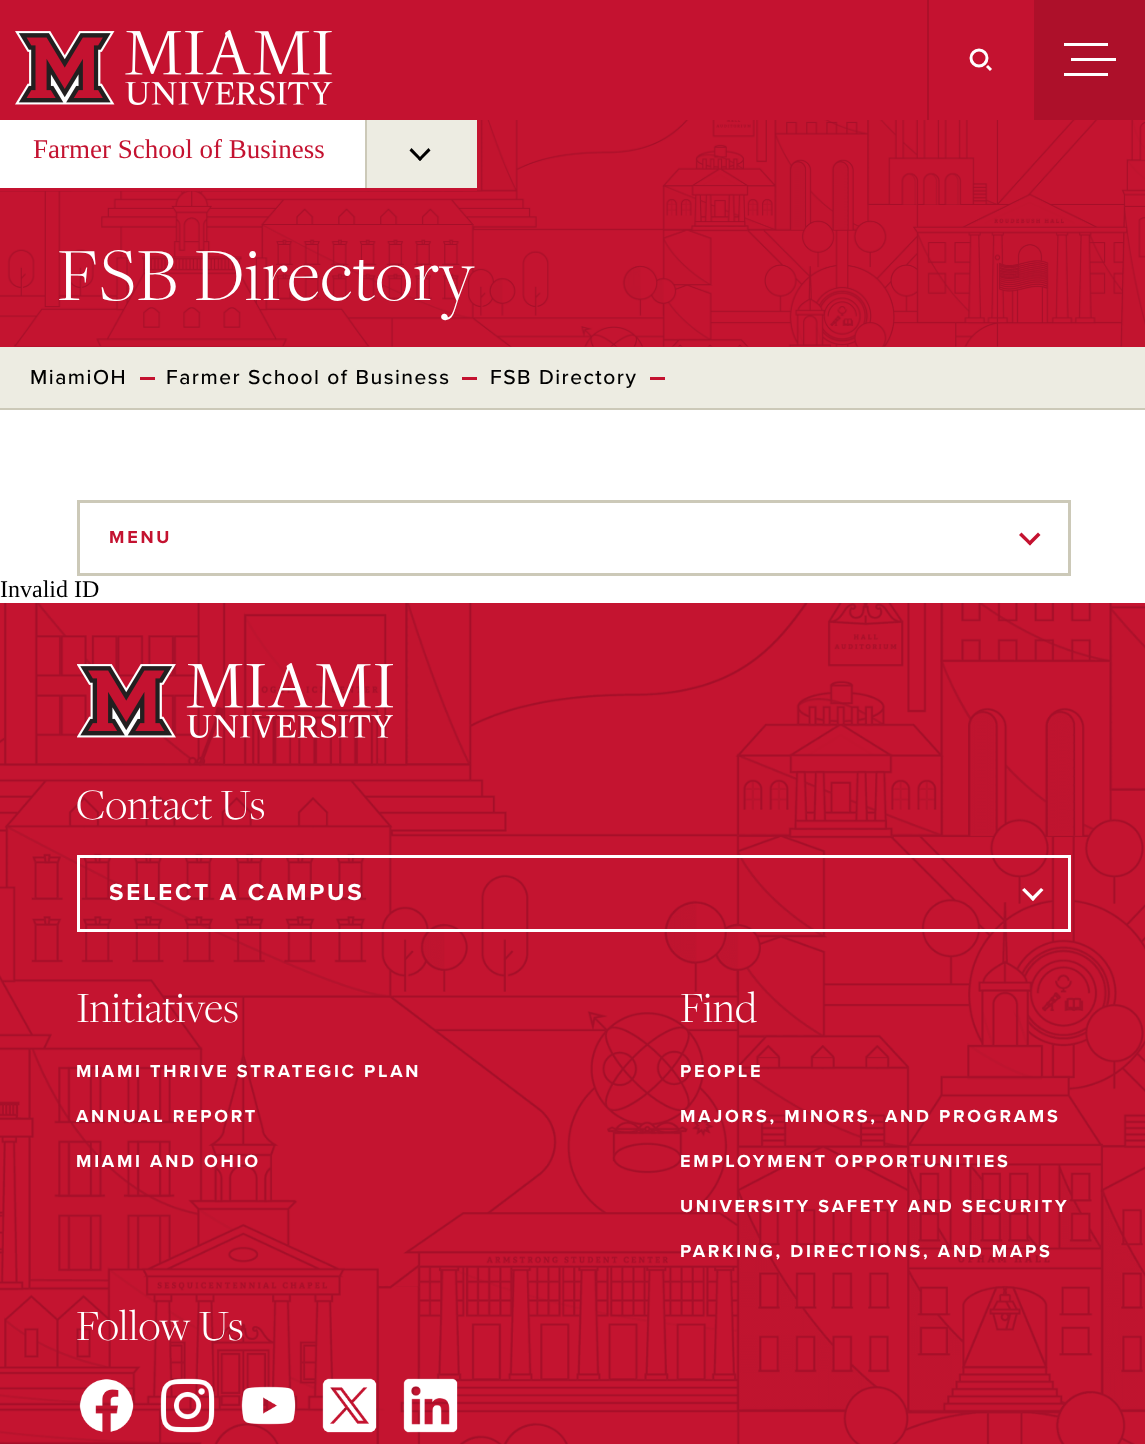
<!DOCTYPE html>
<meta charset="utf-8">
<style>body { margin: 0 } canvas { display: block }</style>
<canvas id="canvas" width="1145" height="1444"></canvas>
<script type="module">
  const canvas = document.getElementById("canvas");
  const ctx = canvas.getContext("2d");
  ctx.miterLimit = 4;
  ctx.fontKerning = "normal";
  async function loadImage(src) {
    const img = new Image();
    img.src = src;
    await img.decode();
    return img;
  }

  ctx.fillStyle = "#ffffff";
  ctx.fillRect(0, 0, 1145, 1444);
  ctx.fillStyle = "#c41230";
  ctx.fillRect(0, 346, 1145, 1);
  ctx.drawImage(await loadImage("img2.png"), 0, 120, 1145, 227);
  ctx.fillStyle = "#ccc9b8";
  ctx.fillRect(365, 117, 2, 71);
  ctx.fillStyle = "#c41230";
  ctx.fillRect(0, 0, 1034, 120);
  ctx.drawImage(await loadImage("img1.png"), 15, 30, 318, 75);
  ctx.fillStyle = "#ad102a";
  ctx.fillRect(927, 0, 2, 120);
  ctx.beginPath();
  ctx.arc(979, 58, 8, 0, Math.PI * 2);
  ctx.strokeStyle = "#ffffff";
  ctx.lineWidth = 3;
  ctx.stroke();
  ctx.beginPath();
  ctx.moveTo(991, 70);
  ctx.lineTo(987, 66);
  ctx.stroke();
  ctx.fillRect(1034, 0, 111, 120);
  ctx.fillStyle = "#ffffff";
  ctx.fillRect(1064, 43, 44, 3);
  ctx.fillRect(1064, 73, 44, 3);
  ctx.fillRect(1071, 58, 45, 3);
  ctx.fillRect(0, 120, 365, 68);
  ctx.fillStyle = "#c41230";
  ctx.fillRect(0, 188, 477, 3);
  ctx.font = "27px Liberation Serif";
  ctx.fillText("Farmer School of Business", 33, 158);
  ctx.fillStyle = "#edece2";
  ctx.fillRect(367, 120, 110, 68);
  ctx.fillStyle = "#000000";
  ctx.beginPath();
  ctx.moveTo(428.5, 148);
  ctx.lineTo(430.5, 150.5);
  ctx.lineTo(420, 161);
  ctx.lineTo(418, 159);
  ctx.closePath();
  ctx.fill();
  ctx.beginPath();
  ctx.moveTo(411.5, 148);
  ctx.lineTo(422, 159);
  ctx.lineTo(420, 161);
  ctx.lineTo(409.5, 150.5);
  ctx.closePath();
  ctx.fill();
  ctx.letterSpacing = "0.4px";
  ctx.font = "300 78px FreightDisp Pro";
  ctx.fillStyle = "#ffffff";
  ctx.fillText("FSB Directory", 57, 300);
  ctx.fillStyle = "#edece2";
  ctx.fillRect(0, 347, 1145, 61);
  ctx.fillStyle = "#ccc9b8";
  ctx.fillRect(0, 408, 1145, 2);
  ctx.letterSpacing = "1.5px";
  ctx.font = "500 21px Proxima Nova";
  ctx.fillStyle = "#000000";
  ctx.fillText("MiamiOH", 30, 384);
  ctx.fillStyle = "#c41230";
  ctx.fillRect(140, 377, 15, 3);
  ctx.fillStyle = "#000000";
  ctx.fillText("Farmer School of Business", 166, 384);
  ctx.fillStyle = "#c41230";
  ctx.fillRect(462, 377, 15, 3);
  ctx.fillStyle = "#000000";
  ctx.fillText("FSB Directory", 490, 384);
  ctx.fillStyle = "#c41230";
  ctx.fillRect(650, 377, 15, 3);
  ctx.strokeStyle = "#ccc9b8";
  ctx.strokeRect(78.5, 501.5, 991, 73);
  ctx.letterSpacing = "2.75px";
  ctx.font = "bold 18px Proxima Nova";
  ctx.fillText("MENU", 109, 543);
  ctx.beginPath();
  ctx.moveTo(1038, 532.5);
  ctx.lineTo(1040.5, 535);
  ctx.lineTo(1030, 545.5);
  ctx.lineTo(1027.5, 543);
  ctx.closePath();
  ctx.fill();
  ctx.beginPath();
  ctx.moveTo(1021.5, 532.5);
  ctx.lineTo(1032, 543);
  ctx.lineTo(1030, 545.5);
  ctx.lineTo(1019, 535);
  ctx.closePath();
  ctx.fill();
  ctx.letterSpacing = "0px";
  ctx.font = "24px Liberation Serif";
  ctx.fillStyle = "#000000";
  ctx.fillText("Invalid ID", 0, 597);
  ctx.drawImage(await loadImage("img3.png"), 0, 603, 1145, 841);
  ctx.drawImage(await loadImage("img4.png"), 77, 663, 316, 75);
  ctx.font = "300 45px FreightDisp Pro";
  ctx.fillStyle = "#ffffff";
  ctx.fillText("Contact Us", 76, 819);
  ctx.strokeStyle = "#ffffff";
  ctx.strokeRect(78.5, 856.5, 991, 74);
  ctx.save();
  ctx.beginPath();
  ctx.rect(110, 882, 886, 23);
  ctx.clip();
  ctx.letterSpacing = "2.75px";
  ctx.font = "bold 24px Proxima Nova";
  ctx.fillText("SELECT A CAMPUS", 109, 900);
  ctx.restore();
  ctx.beginPath();
  ctx.moveTo(1041, 888);
  ctx.lineTo(1043.5, 890);
  ctx.lineTo(1033, 901);
  ctx.lineTo(1030.5, 898.5);
  ctx.closePath();
  ctx.fill();
  ctx.beginPath();
  ctx.moveTo(1024.5, 888);
  ctx.lineTo(1035, 898.5);
  ctx.lineTo(1033, 901);
  ctx.lineTo(1022, 890);
  ctx.closePath();
  ctx.fill();
  ctx.fillText("Initiatives", 76, 1022);
  ctx.letterSpacing = "2.75px";
  ctx.font = "bold 18px Proxima Nova";
  ctx.fillText("MIAMI THRIVE STRATEGIC PLAN", 76, 1077);
  ctx.fillText("ANNUAL REPORT", 76, 1122);
  ctx.fillText("MIAMI AND OHIO", 76, 1167);
  ctx.letterSpacing = "0px";
  ctx.font = "300 45px FreightDisp Pro";
  ctx.fillText("Find", 680, 1022);
  ctx.letterSpacing = "2.75px";
  ctx.font = "bold 18px Proxima Nova";
  ctx.fillText("PEOPLE", 680, 1077);
  ctx.fillText("MAJORS, MINORS, AND PROGRAMS", 680, 1122);
  ctx.fillText("EMPLOYMENT OPPORTUNITIES", 680, 1167);
  ctx.fillText("UNIVERSITY SAFETY AND SECURITY", 680, 1212);
  ctx.fillText("PARKING, DIRECTIONS, AND MAPS", 680, 1257);
  ctx.letterSpacing = "0px";
  ctx.font = "300 45px FreightDisp Pro";
  ctx.fillText("Follow Us", 76, 1340);
  ctx.drawImage(await loadImage("img5.png"), 79, 1379, 55, 53);
  ctx.drawImage(await loadImage("img6.png"), 160, 1378, 55, 55);
  ctx.drawImage(await loadImage("img7.png"), 241, 1386, 55, 39);
  ctx.drawImage(await loadImage("img8.png"), 322, 1378, 55, 55);
  ctx.drawImage(await loadImage("img9.png"), 403, 1378, 55, 55);
</script>
